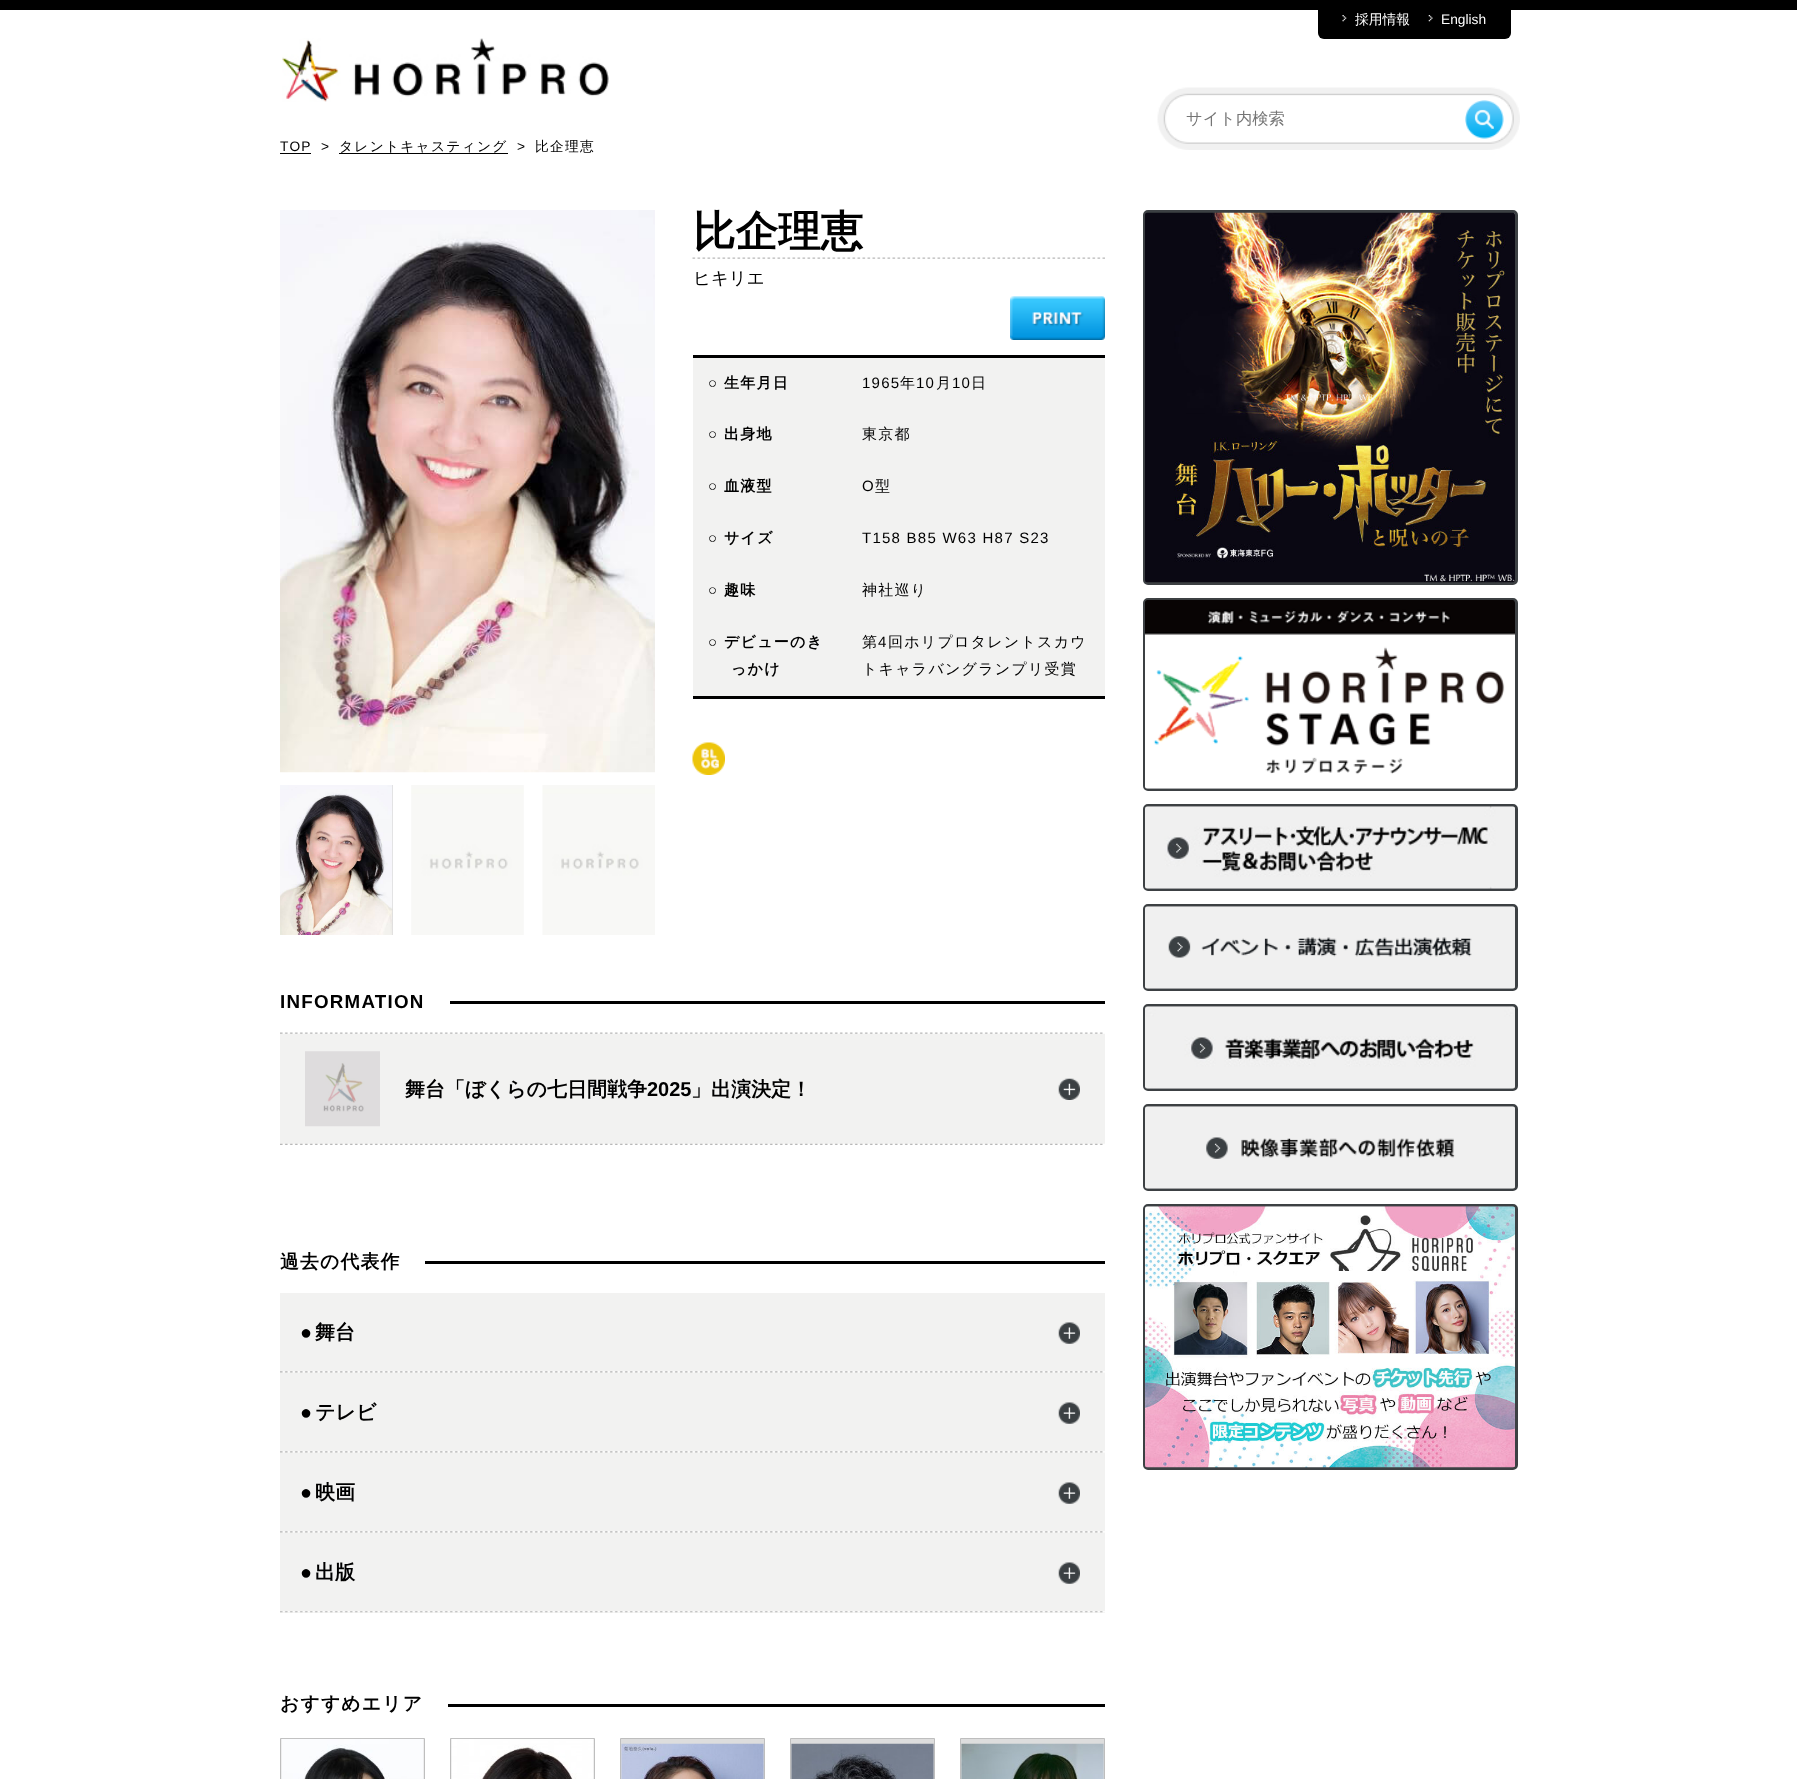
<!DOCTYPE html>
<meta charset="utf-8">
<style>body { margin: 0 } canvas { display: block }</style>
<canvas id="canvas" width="1797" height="1779"></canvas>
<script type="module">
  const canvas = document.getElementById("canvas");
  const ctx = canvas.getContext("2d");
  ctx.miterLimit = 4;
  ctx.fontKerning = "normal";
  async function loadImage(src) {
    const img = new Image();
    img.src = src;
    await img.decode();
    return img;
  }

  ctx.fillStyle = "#ffffff";
  ctx.fillRect(0, 0, 1797, 1779);
  ctx.fillStyle = "#000000";
  ctx.fillRect(0, 0, 1797, 10);
  ctx.beginPath();
  ctx.roundRect(1318, 4, 193, 35, 6);
  ctx.fill();
  ctx.drawImage(await loadImage("img1.png"), 1342, 15, 5, 7);
  ctx.font = "500 13.75px WenQuanYi Zen Hei";
  ctx.fillStyle = "#ffffff";
  ctx.fillText("採用情報", 1355, 24);
  ctx.drawImage(await loadImage("img2.png"), 1428, 15, 5, 7);
  ctx.font = "13.75px Liberation Sans";
  ctx.fillText("English", 1441, 24);
  ctx.drawImage(await loadImage("img3.png"), 1157, 87, 363, 63);
  ctx.font = "500 16.25px WenQuanYi Zen Hei";
  ctx.fillStyle = "#757575";
  ctx.fillText("サイト内検索", 1186, 124);
  ctx.drawImage(await loadImage("img4.png"), 1465, 100, 39, 39);
  ctx.drawImage(await loadImage("img5.png"), 282, 38, 327, 64);
  ctx.letterSpacing = "1.25px";
  ctx.font = "13.75px Liberation Sans";
  ctx.fillStyle = "#000000";
  ctx.fillText("TOP", 280, 151);
  ctx.fillRect(280, 153, 31, 1);
  ctx.fillText(">", 321, 151);
  ctx.font = "500 13.75px WenQuanYi Zen Hei";
  ctx.fillText("タレントキャスティング", 339, 151);
  ctx.fillRect(339, 153, 169, 1);
  ctx.font = "13.75px Liberation Sans";
  ctx.fillText(">", 517, 151);
  ctx.font = "500 13.75px WenQuanYi Zen Hei";
  ctx.fillText("比企理恵", 535, 151);
  ctx.drawImage(await loadImage("img6.png"), 280, 210, 375, 563);
  ctx.fillStyle = "#dddddd";
  ctx.fillRect(392, 785, 1, 150);
  ctx.drawImage(await loadImage("img7.png"), 280, 785, 113, 150);
  ctx.drawImage(await loadImage("img8.png"), 411, 785, 113, 150);
  ctx.drawImage(await loadImage("img9.png"), 542, 785, 113, 150);
  ctx.drawImage(await loadImage("img10.png"), 692, 257, 413, 2);
  ctx.letterSpacing = "0px";
  ctx.font = "bold 42.5px WenQuanYi Zen Hei";
  ctx.fillStyle = "#000000";
  ctx.fillText("比企理恵", 693, 246);
  ctx.font = "500 17.5px WenQuanYi Zen Hei";
  ctx.fillText("ヒキリエ", 693, 284);
  ctx.drawImage(await loadImage("img11.png"), 1010, 296, 95, 44);
  ctx.fillStyle = "#f2f2f1";
  ctx.fillRect(693, 358, 412, 338);
  ctx.fillStyle = "#000000";
  ctx.fillRect(693, 355, 412, 3);
  ctx.fillRect(693, 696, 412, 3);
  ctx.letterSpacing = "1.25px";
  ctx.font = "bold 15px Liberation Sans";
  ctx.fillText("○", 708, 388);
  ctx.font = "bold 15px WenQuanYi Zen Hei";
  ctx.fillText("生年月日", 724, 388);
  ctx.font = "15px Liberation Sans";
  ctx.fillText("1965", 862, 388);
  ctx.font = "500 15px WenQuanYi Zen Hei";
  ctx.fillText("年", 900, 388);
  ctx.font = "15px Liberation Sans";
  ctx.fillText("10", 916, 388);
  ctx.font = "500 15px WenQuanYi Zen Hei";
  ctx.fillText("月", 936, 388);
  ctx.font = "15px Liberation Sans";
  ctx.fillText("10", 952, 388);
  ctx.font = "500 15px WenQuanYi Zen Hei";
  ctx.fillText("日", 971, 388);
  ctx.font = "bold 15px Liberation Sans";
  ctx.fillText("○", 708, 439);
  ctx.font = "bold 15px WenQuanYi Zen Hei";
  ctx.fillText("出身地", 724, 439);
  ctx.font = "500 15px WenQuanYi Zen Hei";
  ctx.fillText("東京都", 862, 439);
  ctx.font = "bold 15px Liberation Sans";
  ctx.fillText("○", 708, 491);
  ctx.font = "bold 15px WenQuanYi Zen Hei";
  ctx.fillText("血液型", 724, 491);
  ctx.font = "15px Liberation Sans";
  ctx.fillText("O", 862, 491);
  ctx.font = "500 15px WenQuanYi Zen Hei";
  ctx.fillText("型", 875, 491);
  ctx.font = "bold 15px Liberation Sans";
  ctx.fillText("○", 708, 543);
  ctx.font = "bold 15px WenQuanYi Zen Hei";
  ctx.fillText("サイズ", 724, 543);
  ctx.font = "15px Liberation Sans";
  ctx.fillText("T158 B85 W63 H87 S23", 862, 543);
  ctx.font = "bold 15px Liberation Sans";
  ctx.fillText("○", 708, 595);
  ctx.font = "bold 15px WenQuanYi Zen Hei";
  ctx.fillText("趣味", 724, 595);
  ctx.font = "500 15px WenQuanYi Zen Hei";
  ctx.fillText("神社巡り", 862, 595);
  ctx.font = "bold 15px Liberation Sans";
  ctx.fillText("○", 708, 647);
  ctx.font = "bold 15px WenQuanYi Zen Hei";
  ctx.fillText("デビューのき", 724, 647);
  ctx.fillText("っかけ", 731, 674);
  ctx.font = "500 15px WenQuanYi Zen Hei";
  ctx.fillText("第", 862, 647);
  ctx.font = "15px Liberation Sans";
  ctx.fillText("4", 878, 647);
  ctx.font = "500 15px WenQuanYi Zen Hei";
  ctx.fillText("回ホリプロタレントスカウ", 888, 647);
  ctx.fillText("トキャラバングランプリ受賞", 862, 674);
  ctx.drawImage(await loadImage("img12.png"), 692, 742, 33, 33);
  ctx.font = "bold 18.75px Liberation Sans";
  ctx.fillText("INFORMATION", 280, 1008);
  ctx.fillRect(450, 1001, 655, 3);
  ctx.fillStyle = "#f2f2f1";
  ctx.fillRect(280, 1033, 825, 111);
  ctx.drawImage(await loadImage("img13.png"), 280, 1032, 825, 2);
  ctx.drawImage(await loadImage("img14.png"), 280, 1143, 825, 2);
  ctx.drawImage(await loadImage("img15.png"), 1058, 1078, 22, 22);
  ctx.drawImage(await loadImage("img16.png"), 305, 1051, 75, 76);
  ctx.letterSpacing = "0px";
  ctx.font = "bold 20px WenQuanYi Zen Hei";
  ctx.fillStyle = "#000000";
  ctx.fillText("舞台「ぼくらの七日間戦争", 405, 1096);
  ctx.font = "bold 20px Liberation Sans";
  ctx.fillText("2025", 647, 1096);
  ctx.font = "bold 20px WenQuanYi Zen Hei";
  ctx.fillText("」出演決定！", 691, 1096);
  ctx.letterSpacing = "1.25px";
  ctx.font = "bold 18.75px WenQuanYi Zen Hei";
  ctx.fillText("過去の代表作", 280, 1268);
  ctx.fillRect(425, 1261, 680, 3);
  ctx.fillStyle = "#f2f2f1";
  ctx.fillRect(280, 1293, 825, 320);
  ctx.drawImage(await loadImage("img17.png"), 280, 1371, 825, 2);
  ctx.drawImage(await loadImage("img18.png"), 1058, 1322, 22, 22);
  ctx.letterSpacing = "0px";
  ctx.font = "bold 20px Liberation Sans";
  ctx.fillStyle = "#000000";
  ctx.fillText("●", 300, 1339);
  ctx.font = "bold 20px WenQuanYi Zen Hei";
  ctx.fillText("舞台", 315, 1339);
  ctx.drawImage(await loadImage("img17.png"), 280, 1451, 825, 2);
  ctx.drawImage(await loadImage("img18.png"), 1058, 1402, 22, 22);
  ctx.font = "bold 20px Liberation Sans";
  ctx.fillText("●", 300, 1419);
  ctx.font = "bold 20px WenQuanYi Zen Hei";
  ctx.fillText("テレビ", 315, 1419);
  ctx.drawImage(await loadImage("img17.png"), 280, 1531, 825, 2);
  ctx.drawImage(await loadImage("img18.png"), 1058, 1482, 22, 22);
  ctx.font = "bold 20px Liberation Sans";
  ctx.fillText("●", 300, 1499);
  ctx.font = "bold 20px WenQuanYi Zen Hei";
  ctx.fillText("映画", 315, 1499);
  ctx.drawImage(await loadImage("img19.png"), 280, 1611, 825, 2);
  ctx.drawImage(await loadImage("img20.png"), 1058, 1562, 22, 22);
  ctx.font = "bold 20px Liberation Sans";
  ctx.fillText("●", 300, 1579);
  ctx.font = "bold 20px WenQuanYi Zen Hei";
  ctx.fillText("出版", 315, 1579);
  ctx.letterSpacing = "1.25px";
  ctx.font = "bold 18.75px WenQuanYi Zen Hei";
  ctx.fillText("おすすめエリア", 280, 1710);
  ctx.fillRect(448, 1704, 657, 3);
  ctx.fillStyle = "#dddddd";
  ctx.beginPath();
  ctx.rect(280.5, 1738.5, 144, 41);
  ctx.fill();
  ctx.strokeStyle = "#bebebe";
  ctx.stroke();
  ctx.drawImage(await loadImage("img21.png"), 281, 1738, 143, 41);
  ctx.beginPath();
  ctx.rect(450.5, 1738.5, 144, 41);
  ctx.fill();
  ctx.stroke();
  ctx.drawImage(await loadImage("img22.png"), 451, 1738, 143, 41);
  ctx.beginPath();
  ctx.rect(620.5, 1738.5, 144, 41);
  ctx.fill();
  ctx.stroke();
  ctx.drawImage(await loadImage("img23.png"), 621, 1743, 143, 36);
  ctx.beginPath();
  ctx.rect(790.5, 1738.5, 144, 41);
  ctx.fill();
  ctx.stroke();
  ctx.drawImage(await loadImage("img24.png"), 791, 1743, 143, 36);
  ctx.beginPath();
  ctx.rect(960.5, 1738.5, 144, 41);
  ctx.fill();
  ctx.stroke();
  ctx.drawImage(await loadImage("img25.png"), 961, 1743, 143, 36);
  ctx.beginPath();
  ctx.roundRect(1144.5, 211.5, 372, 372, 3.5);
  ctx.strokeStyle = "#3c4043";
  ctx.lineWidth = 3;
  ctx.stroke();
  ctx.drawImage(await loadImage("img26.png"), 1145, 212, 370, 371);
  ctx.beginPath();
  ctx.roundRect(1144.5, 599.5, 372, 190, 3.5);
  ctx.stroke();
  ctx.drawImage(await loadImage("img27.png"), 1145, 600, 370, 189);
  ctx.beginPath();
  ctx.roundRect(1144.5, 805.5, 372, 84, 3.5);
  ctx.stroke();
  ctx.drawImage(await loadImage("img28.png"), 1145, 806, 370, 83);
  ctx.beginPath();
  ctx.roundRect(1144.5, 905.5, 372, 84, 3.5);
  ctx.stroke();
  ctx.drawImage(await loadImage("img29.png"), 1145, 906, 370, 83);
  ctx.beginPath();
  ctx.roundRect(1144.5, 1005.5, 372, 84, 3.5);
  ctx.stroke();
  ctx.drawImage(await loadImage("img30.png"), 1145, 1006, 370, 83);
  ctx.beginPath();
  ctx.roundRect(1144.5, 1105.5, 372, 84, 3.5);
  ctx.stroke();
  ctx.drawImage(await loadImage("img31.png"), 1145, 1106, 370, 83);
  ctx.beginPath();
  ctx.roundRect(1144.5, 1205.5, 372, 263, 3.5);
  ctx.stroke();
  ctx.drawImage(await loadImage("img32.png"), 1145, 1206, 370, 262);
</script>
